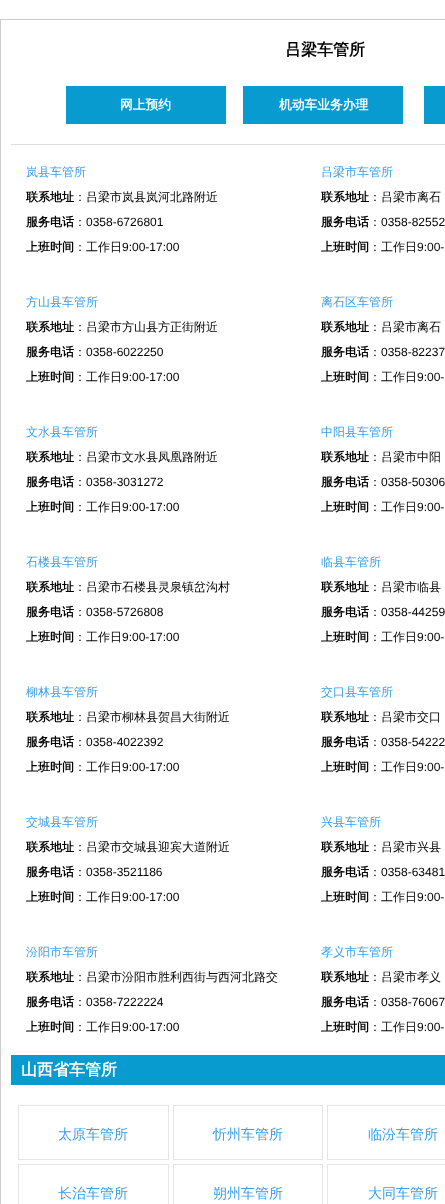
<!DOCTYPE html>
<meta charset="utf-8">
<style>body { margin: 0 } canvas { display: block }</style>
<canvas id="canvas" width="445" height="1204"></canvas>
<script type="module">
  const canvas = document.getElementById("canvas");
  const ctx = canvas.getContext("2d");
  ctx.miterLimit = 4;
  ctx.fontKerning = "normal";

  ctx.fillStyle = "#ffffff";
  ctx.fillRect(0, 0, 445, 1204);
  ctx.strokeStyle = "#cccccc";
  ctx.strokeRect(0.5, 19.5, 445, 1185);
  ctx.font = "bold 16px WenQuanYi Zen Hei";
  ctx.fillStyle = "#000000";
  ctx.fillText("吕梁车管所", 285, 55);
  ctx.fillStyle = "#dddddd";
  ctx.fillRect(11, 144, 434, 1);
  ctx.fillStyle = "#089bd0";
  ctx.fillRect(66, 86, 160, 38);
  ctx.font = "bold 12.75px WenQuanYi Zen Hei";
  ctx.fillStyle = "#ffffff";
  ctx.fillText("网上预约", 120, 109);
  ctx.fillStyle = "#089bd0";
  ctx.fillRect(243, 86, 160, 38);
  ctx.fillStyle = "#ffffff";
  ctx.fillText("机动车业务办理", 279, 109);
  ctx.fillStyle = "#089bd0";
  ctx.fillRect(424, 86, 21, 38);
  ctx.font = "500 12px WenQuanYi Zen Hei";
  ctx.fillStyle = "#3a9ee9";
  ctx.fillText("岚县车管所", 26, 176);
  ctx.font = "bold 12px WenQuanYi Zen Hei";
  ctx.fillStyle = "#000000";
  ctx.fillText("联系地址", 26, 201);
  ctx.font = "500 12px WenQuanYi Zen Hei";
  ctx.fillText("：吕梁市岚县岚河北路附近", 74, 201);
  ctx.font = "bold 12px WenQuanYi Zen Hei";
  ctx.fillText("服务电话", 26, 226);
  ctx.font = "500 12px WenQuanYi Zen Hei";
  ctx.fillText("：", 74, 226);
  ctx.font = "12px Liberation Sans";
  ctx.fillText("0358-6726801", 86, 226);
  ctx.font = "bold 12px WenQuanYi Zen Hei";
  ctx.fillText("上班时间", 26, 251);
  ctx.font = "500 12px WenQuanYi Zen Hei";
  ctx.fillText("：工作日", 74, 251);
  ctx.font = "12px Liberation Sans";
  ctx.fillText("9:00-17:00", 122, 251);
  ctx.font = "500 12px WenQuanYi Zen Hei";
  ctx.fillStyle = "#3a9ee9";
  ctx.fillText("吕梁市车管所", 321, 176);
  ctx.font = "bold 12px WenQuanYi Zen Hei";
  ctx.fillStyle = "#000000";
  ctx.fillText("联系地址", 321, 201);
  ctx.font = "500 12px WenQuanYi Zen Hei";
  ctx.fillText("：吕梁市离石", 369, 201);
  ctx.font = "bold 12px WenQuanYi Zen Hei";
  ctx.fillText("服务电话", 321, 226);
  ctx.font = "500 12px WenQuanYi Zen Hei";
  ctx.fillText("：", 369, 226);
  ctx.font = "12px Liberation Sans";
  ctx.fillText("0358-82552", 381, 226);
  ctx.font = "bold 12px WenQuanYi Zen Hei";
  ctx.fillText("上班时间", 321, 251);
  ctx.font = "500 12px WenQuanYi Zen Hei";
  ctx.fillText("：工作日", 369, 251);
  ctx.font = "12px Liberation Sans";
  ctx.fillText("9:00-", 417, 251);
  ctx.font = "500 12px WenQuanYi Zen Hei";
  ctx.fillStyle = "#3a9ee9";
  ctx.fillText("方山县车管所", 26, 306);
  ctx.font = "bold 12px WenQuanYi Zen Hei";
  ctx.fillStyle = "#000000";
  ctx.fillText("联系地址", 26, 331);
  ctx.font = "500 12px WenQuanYi Zen Hei";
  ctx.fillText("：吕梁市方山县方正街附近", 74, 331);
  ctx.font = "bold 12px WenQuanYi Zen Hei";
  ctx.fillText("服务电话", 26, 356);
  ctx.font = "500 12px WenQuanYi Zen Hei";
  ctx.fillText("：", 74, 356);
  ctx.font = "12px Liberation Sans";
  ctx.fillText("0358-6022250", 86, 356);
  ctx.font = "bold 12px WenQuanYi Zen Hei";
  ctx.fillText("上班时间", 26, 381);
  ctx.font = "500 12px WenQuanYi Zen Hei";
  ctx.fillText("：工作日", 74, 381);
  ctx.font = "12px Liberation Sans";
  ctx.fillText("9:00-17:00", 122, 381);
  ctx.font = "500 12px WenQuanYi Zen Hei";
  ctx.fillStyle = "#3a9ee9";
  ctx.fillText("离石区车管所", 321, 306);
  ctx.font = "bold 12px WenQuanYi Zen Hei";
  ctx.fillStyle = "#000000";
  ctx.fillText("联系地址", 321, 331);
  ctx.font = "500 12px WenQuanYi Zen Hei";
  ctx.fillText("：吕梁市离石", 369, 331);
  ctx.font = "bold 12px WenQuanYi Zen Hei";
  ctx.fillText("服务电话", 321, 356);
  ctx.font = "500 12px WenQuanYi Zen Hei";
  ctx.fillText("：", 369, 356);
  ctx.font = "12px Liberation Sans";
  ctx.fillText("0358-82237", 381, 356);
  ctx.font = "bold 12px WenQuanYi Zen Hei";
  ctx.fillText("上班时间", 321, 381);
  ctx.font = "500 12px WenQuanYi Zen Hei";
  ctx.fillText("：工作日", 369, 381);
  ctx.font = "12px Liberation Sans";
  ctx.fillText("9:00-", 417, 381);
  ctx.font = "500 12px WenQuanYi Zen Hei";
  ctx.fillStyle = "#3a9ee9";
  ctx.fillText("文水县车管所", 26, 436);
  ctx.font = "bold 12px WenQuanYi Zen Hei";
  ctx.fillStyle = "#000000";
  ctx.fillText("联系地址", 26, 461);
  ctx.font = "500 12px WenQuanYi Zen Hei";
  ctx.fillText("：吕梁市文水县凤凰路附近", 74, 461);
  ctx.font = "bold 12px WenQuanYi Zen Hei";
  ctx.fillText("服务电话", 26, 486);
  ctx.font = "500 12px WenQuanYi Zen Hei";
  ctx.fillText("：", 74, 486);
  ctx.font = "12px Liberation Sans";
  ctx.fillText("0358-3031272", 86, 486);
  ctx.font = "bold 12px WenQuanYi Zen Hei";
  ctx.fillText("上班时间", 26, 511);
  ctx.font = "500 12px WenQuanYi Zen Hei";
  ctx.fillText("：工作日", 74, 511);
  ctx.font = "12px Liberation Sans";
  ctx.fillText("9:00-17:00", 122, 511);
  ctx.font = "500 12px WenQuanYi Zen Hei";
  ctx.fillStyle = "#3a9ee9";
  ctx.fillText("中阳县车管所", 321, 436);
  ctx.font = "bold 12px WenQuanYi Zen Hei";
  ctx.fillStyle = "#000000";
  ctx.fillText("联系地址", 321, 461);
  ctx.font = "500 12px WenQuanYi Zen Hei";
  ctx.fillText("：吕梁市中阳", 369, 461);
  ctx.font = "bold 12px WenQuanYi Zen Hei";
  ctx.fillText("服务电话", 321, 486);
  ctx.font = "500 12px WenQuanYi Zen Hei";
  ctx.fillText("：", 369, 486);
  ctx.font = "12px Liberation Sans";
  ctx.fillText("0358-50306", 381, 486);
  ctx.font = "bold 12px WenQuanYi Zen Hei";
  ctx.fillText("上班时间", 321, 511);
  ctx.font = "500 12px WenQuanYi Zen Hei";
  ctx.fillText("：工作日", 369, 511);
  ctx.font = "12px Liberation Sans";
  ctx.fillText("9:00-", 417, 511);
  ctx.font = "500 12px WenQuanYi Zen Hei";
  ctx.fillStyle = "#3a9ee9";
  ctx.fillText("石楼县车管所", 26, 566);
  ctx.font = "bold 12px WenQuanYi Zen Hei";
  ctx.fillStyle = "#000000";
  ctx.fillText("联系地址", 26, 591);
  ctx.font = "500 12px WenQuanYi Zen Hei";
  ctx.fillText("：吕梁市石楼县灵泉镇岔沟村", 74, 591);
  ctx.font = "bold 12px WenQuanYi Zen Hei";
  ctx.fillText("服务电话", 26, 616);
  ctx.font = "500 12px WenQuanYi Zen Hei";
  ctx.fillText("：", 74, 616);
  ctx.font = "12px Liberation Sans";
  ctx.fillText("0358-5726808", 86, 616);
  ctx.font = "bold 12px WenQuanYi Zen Hei";
  ctx.fillText("上班时间", 26, 641);
  ctx.font = "500 12px WenQuanYi Zen Hei";
  ctx.fillText("：工作日", 74, 641);
  ctx.font = "12px Liberation Sans";
  ctx.fillText("9:00-17:00", 122, 641);
  ctx.font = "500 12px WenQuanYi Zen Hei";
  ctx.fillStyle = "#3a9ee9";
  ctx.fillText("临县车管所", 321, 566);
  ctx.font = "bold 12px WenQuanYi Zen Hei";
  ctx.fillStyle = "#000000";
  ctx.fillText("联系地址", 321, 591);
  ctx.font = "500 12px WenQuanYi Zen Hei";
  ctx.fillText("：吕梁市临县", 369, 591);
  ctx.font = "bold 12px WenQuanYi Zen Hei";
  ctx.fillText("服务电话", 321, 616);
  ctx.font = "500 12px WenQuanYi Zen Hei";
  ctx.fillText("：", 369, 616);
  ctx.font = "12px Liberation Sans";
  ctx.fillText("0358-44259", 381, 616);
  ctx.font = "bold 12px WenQuanYi Zen Hei";
  ctx.fillText("上班时间", 321, 641);
  ctx.font = "500 12px WenQuanYi Zen Hei";
  ctx.fillText("：工作日", 369, 641);
  ctx.font = "12px Liberation Sans";
  ctx.fillText("9:00-", 417, 641);
  ctx.font = "500 12px WenQuanYi Zen Hei";
  ctx.fillStyle = "#3a9ee9";
  ctx.fillText("柳林县车管所", 26, 696);
  ctx.font = "bold 12px WenQuanYi Zen Hei";
  ctx.fillStyle = "#000000";
  ctx.fillText("联系地址", 26, 721);
  ctx.font = "500 12px WenQuanYi Zen Hei";
  ctx.fillText("：吕梁市柳林县贺昌大街附近", 74, 721);
  ctx.font = "bold 12px WenQuanYi Zen Hei";
  ctx.fillText("服务电话", 26, 746);
  ctx.font = "500 12px WenQuanYi Zen Hei";
  ctx.fillText("：", 74, 746);
  ctx.font = "12px Liberation Sans";
  ctx.fillText("0358-4022392", 86, 746);
  ctx.font = "bold 12px WenQuanYi Zen Hei";
  ctx.fillText("上班时间", 26, 771);
  ctx.font = "500 12px WenQuanYi Zen Hei";
  ctx.fillText("：工作日", 74, 771);
  ctx.font = "12px Liberation Sans";
  ctx.fillText("9:00-17:00", 122, 771);
  ctx.font = "500 12px WenQuanYi Zen Hei";
  ctx.fillStyle = "#3a9ee9";
  ctx.fillText("交口县车管所", 321, 696);
  ctx.font = "bold 12px WenQuanYi Zen Hei";
  ctx.fillStyle = "#000000";
  ctx.fillText("联系地址", 321, 721);
  ctx.font = "500 12px WenQuanYi Zen Hei";
  ctx.fillText("：吕梁市交口", 369, 721);
  ctx.font = "bold 12px WenQuanYi Zen Hei";
  ctx.fillText("服务电话", 321, 746);
  ctx.font = "500 12px WenQuanYi Zen Hei";
  ctx.fillText("：", 369, 746);
  ctx.font = "12px Liberation Sans";
  ctx.fillText("0358-54222", 381, 746);
  ctx.font = "bold 12px WenQuanYi Zen Hei";
  ctx.fillText("上班时间", 321, 771);
  ctx.font = "500 12px WenQuanYi Zen Hei";
  ctx.fillText("：工作日", 369, 771);
  ctx.font = "12px Liberation Sans";
  ctx.fillText("9:00-", 417, 771);
  ctx.font = "500 12px WenQuanYi Zen Hei";
  ctx.fillStyle = "#3a9ee9";
  ctx.fillText("交城县车管所", 26, 826);
  ctx.font = "bold 12px WenQuanYi Zen Hei";
  ctx.fillStyle = "#000000";
  ctx.fillText("联系地址", 26, 851);
  ctx.font = "500 12px WenQuanYi Zen Hei";
  ctx.fillText("：吕梁市交城县迎宾大道附近", 74, 851);
  ctx.font = "bold 12px WenQuanYi Zen Hei";
  ctx.fillText("服务电话", 26, 876);
  ctx.font = "500 12px WenQuanYi Zen Hei";
  ctx.fillText("：", 74, 876);
  ctx.font = "12px Liberation Sans";
  ctx.fillText("0358-3521186", 86, 876);
  ctx.font = "bold 12px WenQuanYi Zen Hei";
  ctx.fillText("上班时间", 26, 901);
  ctx.font = "500 12px WenQuanYi Zen Hei";
  ctx.fillText("：工作日", 74, 901);
  ctx.font = "12px Liberation Sans";
  ctx.fillText("9:00-17:00", 122, 901);
  ctx.font = "500 12px WenQuanYi Zen Hei";
  ctx.fillStyle = "#3a9ee9";
  ctx.fillText("兴县车管所", 321, 826);
  ctx.font = "bold 12px WenQuanYi Zen Hei";
  ctx.fillStyle = "#000000";
  ctx.fillText("联系地址", 321, 851);
  ctx.font = "500 12px WenQuanYi Zen Hei";
  ctx.fillText("：吕梁市兴县", 369, 851);
  ctx.font = "bold 12px WenQuanYi Zen Hei";
  ctx.fillText("服务电话", 321, 876);
  ctx.font = "500 12px WenQuanYi Zen Hei";
  ctx.fillText("：", 369, 876);
  ctx.font = "12px Liberation Sans";
  ctx.fillText("0358-63481", 381, 876);
  ctx.font = "bold 12px WenQuanYi Zen Hei";
  ctx.fillText("上班时间", 321, 901);
  ctx.font = "500 12px WenQuanYi Zen Hei";
  ctx.fillText("：工作日", 369, 901);
  ctx.font = "12px Liberation Sans";
  ctx.fillText("9:00-", 417, 901);
  ctx.font = "500 12px WenQuanYi Zen Hei";
  ctx.fillStyle = "#3a9ee9";
  ctx.fillText("汾阳市车管所", 26, 956);
  ctx.font = "bold 12px WenQuanYi Zen Hei";
  ctx.fillStyle = "#000000";
  ctx.fillText("联系地址", 26, 981);
  ctx.font = "500 12px WenQuanYi Zen Hei";
  ctx.fillText("：吕梁市汾阳市胜利西街与西河北路交", 74, 981);
  ctx.font = "bold 12px WenQuanYi Zen Hei";
  ctx.fillText("服务电话", 26, 1006);
  ctx.font = "500 12px WenQuanYi Zen Hei";
  ctx.fillText("：", 74, 1006);
  ctx.font = "12px Liberation Sans";
  ctx.fillText("0358-7222224", 86, 1006);
  ctx.font = "bold 12px WenQuanYi Zen Hei";
  ctx.fillText("上班时间", 26, 1031);
  ctx.font = "500 12px WenQuanYi Zen Hei";
  ctx.fillText("：工作日", 74, 1031);
  ctx.font = "12px Liberation Sans";
  ctx.fillText("9:00-17:00", 122, 1031);
  ctx.font = "500 12px WenQuanYi Zen Hei";
  ctx.fillStyle = "#3a9ee9";
  ctx.fillText("孝义市车管所", 321, 956);
  ctx.font = "bold 12px WenQuanYi Zen Hei";
  ctx.fillStyle = "#000000";
  ctx.fillText("联系地址", 321, 981);
  ctx.font = "500 12px WenQuanYi Zen Hei";
  ctx.fillText("：吕梁市孝义", 369, 981);
  ctx.font = "bold 12px WenQuanYi Zen Hei";
  ctx.fillText("服务电话", 321, 1006);
  ctx.font = "500 12px WenQuanYi Zen Hei";
  ctx.fillText("：", 369, 1006);
  ctx.font = "12px Liberation Sans";
  ctx.fillText("0358-76067", 381, 1006);
  ctx.font = "bold 12px WenQuanYi Zen Hei";
  ctx.fillText("上班时间", 321, 1031);
  ctx.font = "500 12px WenQuanYi Zen Hei";
  ctx.fillText("：工作日", 369, 1031);
  ctx.font = "12px Liberation Sans";
  ctx.fillText("9:00-", 417, 1031);
  ctx.fillStyle = "#089bd0";
  ctx.fillRect(11, 1055, 434, 30);
  ctx.font = "bold 16px WenQuanYi Zen Hei";
  ctx.fillStyle = "#ffffff";
  ctx.fillText("山西省车管所", 21, 1075);
  ctx.strokeStyle = "#e5e5e5";
  ctx.strokeRect(18.5, 1105.5, 150, 54);
  ctx.font = "500 14px WenQuanYi Zen Hei";
  ctx.fillStyle = "#3a9ee9";
  ctx.fillText("太原车管所", 58, 1139);
  ctx.strokeRect(173.5, 1105.5, 149, 54);
  ctx.fillText("忻州车管所", 213, 1139);
  ctx.strokeRect(327.5, 1105.5, 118, 54);
  ctx.fillText("临汾车管所", 368, 1139);
  ctx.strokeRect(18.5, 1164.5, 150, 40);
  ctx.fillText("长治车管所", 58, 1198);
  ctx.strokeRect(173.5, 1164.5, 149, 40);
  ctx.fillText("朔州车管所", 213, 1198);
  ctx.strokeRect(327.5, 1164.5, 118, 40);
  ctx.fillText("大同车管所", 368, 1198);
</script>
